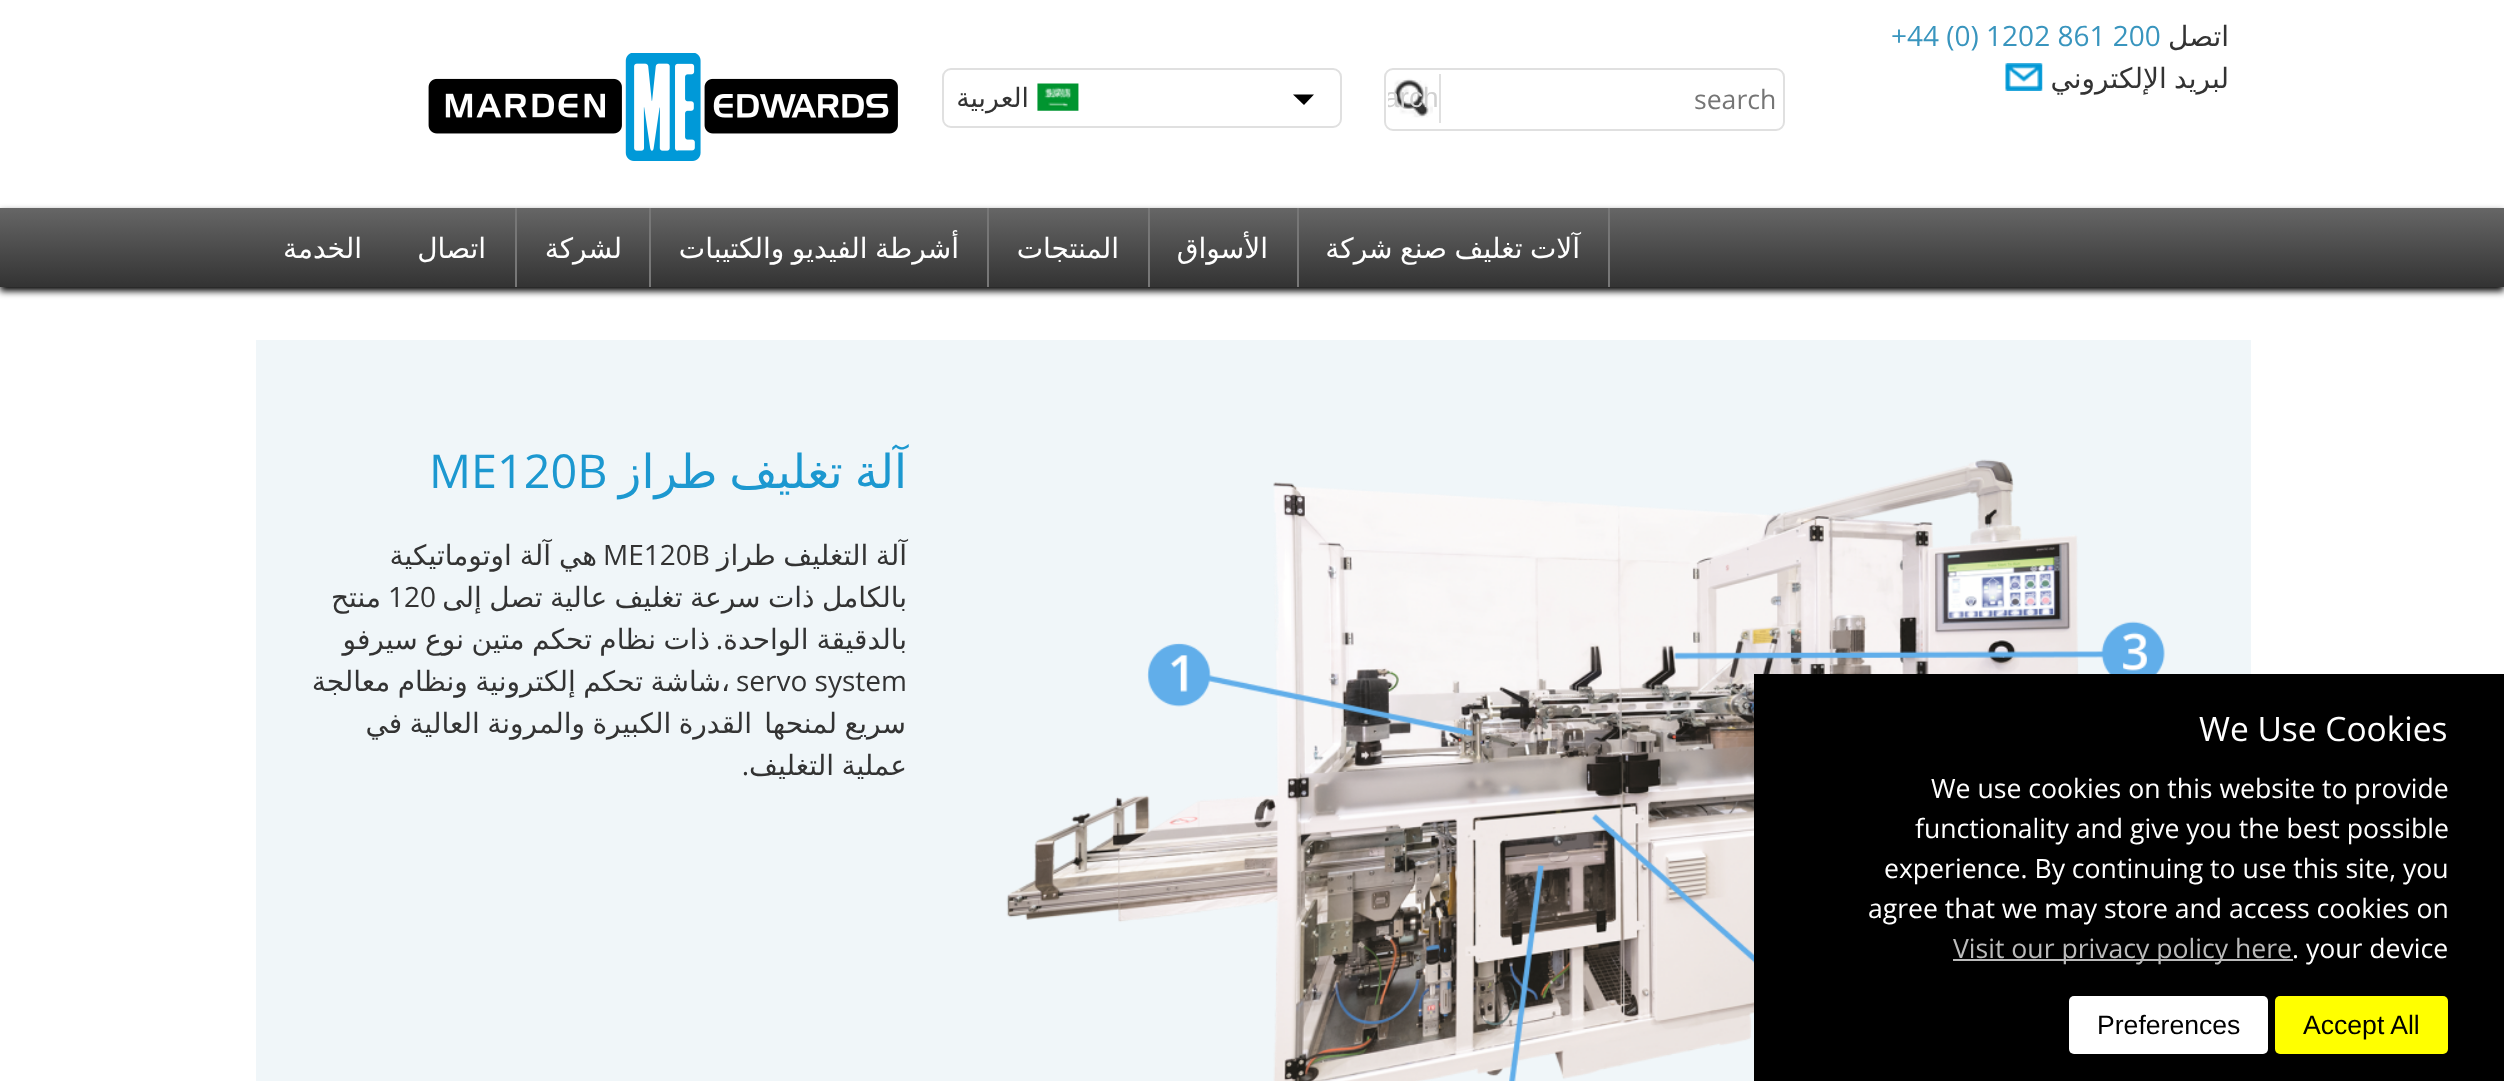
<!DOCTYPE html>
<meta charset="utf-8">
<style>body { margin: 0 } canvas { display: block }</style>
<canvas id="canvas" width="2504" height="1081"></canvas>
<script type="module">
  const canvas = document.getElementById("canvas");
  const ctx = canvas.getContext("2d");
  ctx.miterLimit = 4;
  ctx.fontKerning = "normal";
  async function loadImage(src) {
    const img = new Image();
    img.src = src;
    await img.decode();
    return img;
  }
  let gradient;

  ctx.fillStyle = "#ffffff";
  ctx.fillRect(0, 0, 2504, 1081);
  ctx.direction = "rtl";
  ctx.font = "28px DejaVu Sans";
  ctx.fillStyle = "#333333";
  ctx.fillText("اتصل", 2229, 46);
  ctx.direction = "ltr";
  ctx.font = "28px Open Sans";
  ctx.fillStyle = "#3995be";
  ctx.fillText("+44 (0) 1202 861 200", 1891, 46);
  ctx.wordSpacing = "-1.5px";
  ctx.direction = "rtl";
  ctx.font = "28px DejaVu Sans";
  ctx.fillStyle = "#333333";
  ctx.fillText("لبريد الإلكتروني", 2229, 88);
  ctx.drawImage(await loadImage("img1.png"), 2005, 63, 38, 28);
  ctx.beginPath();
  ctx.roundRect(1385, 69, 399, 61, 8);
  ctx.strokeStyle = "#e0e0e0";
  ctx.lineWidth = 2;
  ctx.stroke();
  ctx.wordSpacing = "0px";
  ctx.direction = "ltr";
  ctx.font = "26.6px Open Sans";
  ctx.fillStyle = "#757575";
  ctx.fillText("search", 1694, 109);
  ctx.drawImage(await loadImage("img2.png"), 1394, 78, 39, 40);
  ctx.fillStyle = "#e0e0e0";
  ctx.fillRect(1439, 74, 2, 49);
  ctx.save();
  ctx.beginPath();
  ctx.rect(1388, 74, 51, 49);
  ctx.clip();
  ctx.font = "28px Liberation Sans";
  ctx.fillStyle = "#d1d1d1";
  ctx.fillText("arch", 1384, 107);
  ctx.restore();
  ctx.beginPath();
  ctx.roundRect(943, 69, 398, 58, 8);
  ctx.stroke();
  ctx.fillStyle = "#000000";
  ctx.beginPath();
  ctx.moveTo(1293, 94.5);
  ctx.lineTo(1314, 94.5);
  ctx.lineTo(1304, 105);
  ctx.closePath();
  ctx.fill();
  ctx.drawImage(await loadImage("img3.png"), 1037, 83, 42, 28);
  ctx.direction = "rtl";
  ctx.font = "26.6px DejaVu Sans";
  ctx.fillStyle = "#333333";
  ctx.fillText("العربية", 1029, 107);
  ctx.drawImage(await loadImage("img4.png"), 428, 53, 470, 108);
  ctx.fillStyle = "#000000";
  ctx.filter = "blur(3.5px)";
  ctx.beginPath();
  ctx.rect(0, 212, 2504, 79);
  ctx.fill();
  ctx.filter = "none";
  gradient = ctx.createLinearGradient(1252, 208, 1252, 287);
  gradient.addColorStop(0, "#666666");
  gradient.addColorStop(1, "#333333");
  ctx.fillStyle = gradient;
  ctx.fillRect(0, 208, 2504, 79);
  ctx.fillStyle = "#777777";
  ctx.fillRect(1608, 208, 2, 79);
  ctx.wordSpacing = "-1.5px";
  ctx.font = "28px DejaVu Sans";
  ctx.fillStyle = "#ffffff";
  ctx.fillText("آلات تغليف صنع شركة", 1580, 258);
  ctx.fillStyle = "#777777";
  ctx.fillRect(1297, 208, 2, 79);
  ctx.wordSpacing = "0px";
  ctx.fillStyle = "#ffffff";
  ctx.fillText("الأسواق", 1268, 258);
  ctx.fillStyle = "#777777";
  ctx.fillRect(1148, 208, 2, 79);
  ctx.fillStyle = "#ffffff";
  ctx.fillText("المنتجات", 1119, 258);
  ctx.fillStyle = "#777777";
  ctx.fillRect(987, 208, 2, 79);
  ctx.wordSpacing = "-1.5px";
  ctx.fillStyle = "#ffffff";
  ctx.fillText("أشرطة الفيديو والكتيبات", 959, 258);
  ctx.fillStyle = "#777777";
  ctx.fillRect(649, 208, 2, 79);
  ctx.wordSpacing = "0px";
  ctx.fillStyle = "#ffffff";
  ctx.fillText("لشركة", 622, 258);
  ctx.fillStyle = "#777777";
  ctx.fillRect(515, 208, 2, 79);
  ctx.fillStyle = "#ffffff";
  ctx.fillText("اتصال", 486, 258);
  ctx.fillText("الخدمة", 362, 258);
  ctx.fillStyle = "#f0f6f9";
  ctx.fillRect(256, 340, 1995, 741);
  ctx.drawImage(await loadImage("img5.png"), 1006, 459, 1159, 622);
  ctx.wordSpacing = "-3px";
  ctx.font = "46.75px DejaVu Sans";
  ctx.fillStyle = "#1c98d0";
  ctx.fillText("آلة تغليف طراز", 907, 488);
  ctx.wordSpacing = "0px";
  ctx.direction = "ltr";
  ctx.font = "46.75px Open Sans";
  ctx.fillText("ME120B", 429, 488);
  ctx.wordSpacing = "-1.5px";
  ctx.direction = "rtl";
  ctx.font = "28px DejaVu Sans";
  ctx.fillStyle = "#333333";
  ctx.fillText("آلة التغليف طراز", 907, 565);
  ctx.wordSpacing = "0px";
  ctx.direction = "ltr";
  ctx.font = "28px Open Sans";
  ctx.fillText("ME120B", 603, 565);
  ctx.wordSpacing = "-1px";
  ctx.direction = "rtl";
  ctx.font = "28px DejaVu Sans";
  ctx.fillText("هي آلة اوتوماتيكية", 597, 565);
  ctx.wordSpacing = "-1.5px";
  ctx.fillText("بالكامل ذات سرعة تغليف عالية تصل إلى", 907, 607);
  ctx.wordSpacing = "0px";
  ctx.direction = "ltr";
  ctx.font = "28px Open Sans";
  ctx.fillText("120", 388, 607);
  ctx.direction = "rtl";
  ctx.font = "28px DejaVu Sans";
  ctx.fillText("منتح", 381, 607);
  ctx.wordSpacing = "-1px";
  ctx.fillText("بالدقيقة الواحدة", 907, 649);
  ctx.wordSpacing = "0px";
  ctx.font = "28px Open Sans";
  ctx.fillText(".", 723, 649);
  ctx.wordSpacing = "-1.5px";
  ctx.font = "28px DejaVu Sans";
  ctx.fillText("ذات نظام تحكم متين نوع سيرفو", 710, 649);
  ctx.wordSpacing = "0px";
  ctx.direction = "ltr";
  ctx.font = "28px Open Sans";
  ctx.fillText("servo system", 736, 691);
  ctx.wordSpacing = "-1.5px";
  ctx.direction = "rtl";
  ctx.font = "28px DejaVu Sans";
  ctx.fillText("،شاشة تحكم إلكترونية ونظام معالجة", 730, 691);
  ctx.fillText("سريع لمنحها", 906, 733);
  ctx.fillText("القدرة الكبيرة والمرونة العالية في", 752, 733);
  ctx.fillText("عملية التغليف", 907, 775);
  ctx.wordSpacing = "0px";
  ctx.font = "28px Open Sans";
  ctx.fillText(".", 749, 775);
  ctx.fillStyle = "#000000";
  ctx.fillRect(1754, 674, 750, 407);
  ctx.direction = "ltr";
  ctx.font = "33.5px Open Sans";
  ctx.fillStyle = "#ffffff";
  ctx.fillText("We Use Cookies", 2199, 741);
  ctx.font = "26.6px Open Sans";
  ctx.fillText("We use cookies on this website to provide", 1931, 798);
  ctx.fillText("functionality and give you the best possible", 1915, 838);
  ctx.fillText("experience. By continuing to use this site, you", 1884, 878);
  ctx.fillText("agree that we may store and access cookies on", 1868, 918);
  ctx.fillText(". your device", 2292, 958);
  ctx.fillStyle = "#bbbbbb";
  ctx.fillRect(1953, 959, 340, 2);
  ctx.fillText("Visit our privacy policy here", 1953, 958);
  ctx.fillStyle = "#ffff00";
  ctx.beginPath();
  ctx.roundRect(2275, 996, 173, 58, 5);
  ctx.fill();
  ctx.font = "26.6px Liberation Sans";
  ctx.fillStyle = "#000000";
  ctx.fillText("Accept All", 2303, 1034);
  ctx.fillStyle = "#ffffff";
  ctx.beginPath();
  ctx.roundRect(2069, 996, 199, 58, 5);
  ctx.fill();
  ctx.fillStyle = "#000000";
  ctx.fillText("Preferences", 2097, 1034);
</script>
